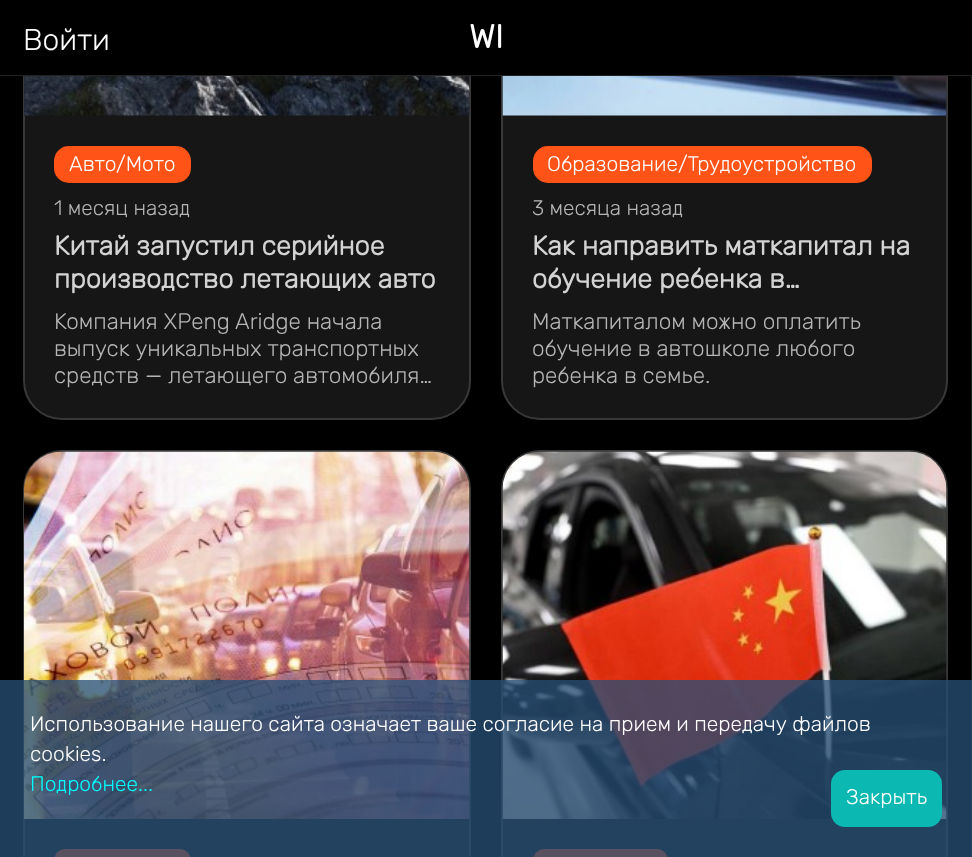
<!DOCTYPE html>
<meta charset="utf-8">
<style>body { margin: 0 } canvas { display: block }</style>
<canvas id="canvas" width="972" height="857"></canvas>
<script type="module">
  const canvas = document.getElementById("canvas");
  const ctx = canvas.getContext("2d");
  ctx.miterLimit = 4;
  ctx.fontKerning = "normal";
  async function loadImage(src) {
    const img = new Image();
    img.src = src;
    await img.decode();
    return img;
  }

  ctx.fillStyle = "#000000";
  ctx.fillRect(0, 0, 972, 857);
  ctx.fillStyle = "#161616";
  ctx.beginPath();
  ctx.roundRect(23, -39, 448, 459, 39);
  ctx.fill();
  ctx.beginPath();
  ctx.roundRect(24, -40, 446, 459, 38);
  ctx.strokeStyle = "rgba(255, 255, 255, 0.15)";
  ctx.lineWidth = 2;
  ctx.stroke();
  ctx.beginPath();
  ctx.roundRect(501, -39, 447, 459, 39);
  ctx.fill();
  ctx.beginPath();
  ctx.roundRect(502, -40, 445, 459, 38);
  ctx.stroke();
  ctx.fillStyle = "#222222";
  ctx.fillRect(0, 75, 972, 1);
  ctx.fillStyle = "#000000";
  ctx.fillRect(23, 0, 925, 75);
  ctx.font = "300 30px Rubik";
  ctx.fillStyle = "#ffffff";
  ctx.fillText("Войти", 23, 50);
  ctx.font = "bold 33px Rubik";
  ctx.fillText("WI", 469, 48);
  ctx.fillStyle = "#222222";
  ctx.fillRect(971, 76, 1, 781);
  ctx.drawImage(await loadImage("img1.png"), 24, 76, 446, 40);
  ctx.fillStyle = "#ff5317";
  ctx.beginPath();
  ctx.roundRect(54, 146, 137, 37, 15);
  ctx.fill();
  ctx.font = "300 21px Rubik";
  ctx.fillStyle = "#ffffff";
  ctx.fillText("Авто/Мото", 69, 171);
  ctx.fillStyle = "#b5b5b5";
  ctx.fillText("1 месяц назад", 54, 215);
  ctx.font = "bold 27px Rubik";
  ctx.fillStyle = "#d3d3d3";
  ctx.fillText("Китай запустил серийное", 54, 255);
  ctx.fillText("производство летающих авто", 54, 288);
  ctx.font = "300 22.5px Rubik";
  ctx.fillStyle = "#b5b5b5";
  ctx.fillText("Компания XPeng Aridge начала", 54, 329);
  ctx.fillText("выпуск уникальных транспортных", 54, 356);
  ctx.fillText("средств — летающего автомобиля…", 54, 383);
  ctx.drawImage(await loadImage("img2.png"), 502, 76, 445, 40);
  ctx.fillStyle = "#ff5317";
  ctx.beginPath();
  ctx.roundRect(533, 146, 339, 37, 15);
  ctx.fill();
  ctx.font = "300 21px Rubik";
  ctx.fillStyle = "#ffffff";
  ctx.fillText("Образование/Трудоустройство", 547, 171);
  ctx.fillStyle = "#b5b5b5";
  ctx.fillText("3 месяца назад", 532, 215);
  ctx.font = "bold 27px Rubik";
  ctx.fillStyle = "#d3d3d3";
  ctx.fillText("Как направить маткапитал на", 532, 255);
  ctx.fillText("обучение ребенка в…", 532, 288);
  ctx.font = "300 22.5px Rubik";
  ctx.fillStyle = "#b5b5b5";
  ctx.fillText("Маткапиталом можно оплатить", 532, 329);
  ctx.fillText("обучение в автошколе любого", 532, 356);
  ctx.fillText("ребенка в семье.", 532, 383);
  ctx.fillStyle = "#161616";
  ctx.beginPath();
  ctx.roundRect(23, 450, 448, 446, 39);
  ctx.fill();
  ctx.beginPath();
  ctx.roundRect(24, 451, 446, 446, 38);
  ctx.stroke();
  ctx.drawImage(await loadImage("img3.png"), 24, 451, 446, 368);
  ctx.fillStyle = "#ff5317";
  ctx.beginPath();
  ctx.roundRect(54, 849, 137, 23, 15);
  ctx.fill();
  ctx.fillStyle = "#161616";
  ctx.beginPath();
  ctx.roundRect(501, 450, 447, 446, 39);
  ctx.fill();
  ctx.beginPath();
  ctx.roundRect(502, 451, 445, 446, 38);
  ctx.stroke();
  ctx.drawImage(await loadImage("img4.png"), 502, 451, 445, 368);
  ctx.fillStyle = "#ff5317";
  ctx.beginPath();
  ctx.roundRect(533, 849, 135, 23, 15);
  ctx.fill();
  ctx.fillStyle = "rgba(39, 79, 119, 0.77)";
  ctx.fillRect(0, 680, 972, 177);
  ctx.font = "300 21px Rubik";
  ctx.fillStyle = "#ffffff";
  ctx.fillText("Использование нашего сайта означает ваше согласие на прием и передачу файлов", 30, 731);
  ctx.fillText("cookies.", 30, 761);
  ctx.fillStyle = "#00ffff";
  ctx.fillText("Подробнее...", 30, 791);
  ctx.fillStyle = "#0cb9b2";
  ctx.beginPath();
  ctx.roundRect(831, 770, 111, 57, 14);
  ctx.fill();
  ctx.fillStyle = "#ffffff";
  ctx.fillText("Закрыть", 846, 804);
</script>
